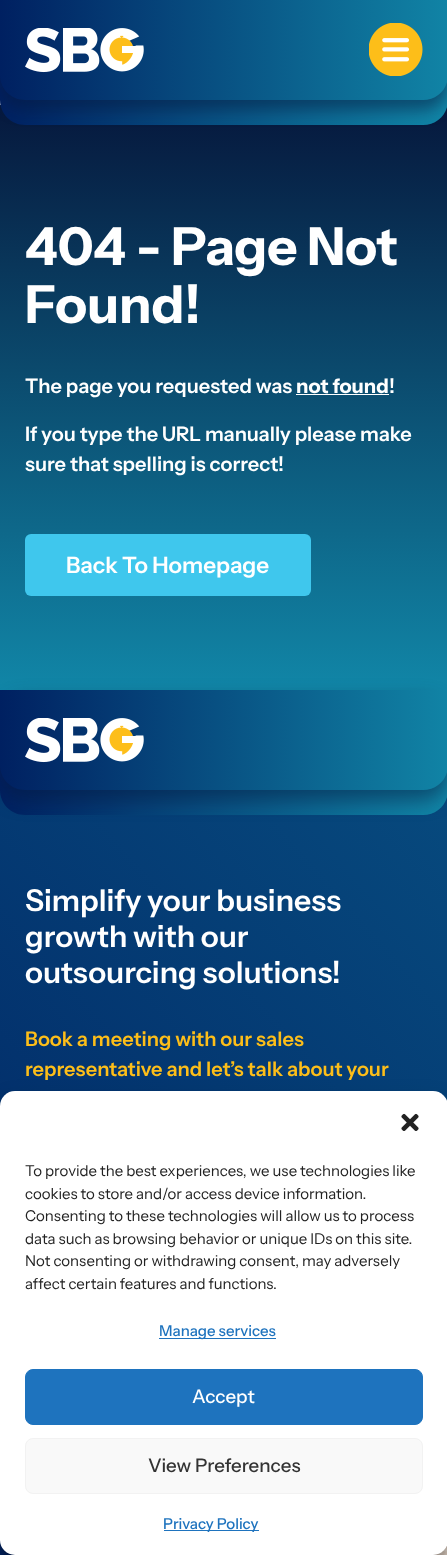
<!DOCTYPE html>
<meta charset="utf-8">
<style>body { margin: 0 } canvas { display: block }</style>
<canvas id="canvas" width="447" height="1555"></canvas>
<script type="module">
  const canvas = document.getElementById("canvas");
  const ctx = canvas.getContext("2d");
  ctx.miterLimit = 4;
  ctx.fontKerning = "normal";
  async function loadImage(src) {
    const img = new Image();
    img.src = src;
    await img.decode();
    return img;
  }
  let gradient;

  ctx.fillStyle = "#ffffff";
  ctx.fillRect(0, 0, 447, 1555);
  gradient = ctx.createLinearGradient(224, 690, 224, 105);
  gradient.addColorStop(0, "#1186a7");
  gradient.addColorStop(1, "#06183d");
  ctx.fillStyle = gradient;
  ctx.fillRect(0, 105, 447, 585);
  gradient = ctx.createLinearGradient(0, 63, 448, 62);
  gradient.addColorStop(0, "#002061");
  gradient.addColorStop(1, "#1186a7");
  ctx.fillStyle = gradient;
  ctx.beginPath();
  ctx.moveTo(0, 0);
  ctx.lineTo(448, 0);
  ctx.lineTo(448, 100);
  ctx.bezierCurveTo(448, 114, 437, 125, 423, 125);
  ctx.lineTo(25, 125);
  ctx.bezierCurveTo(11, 125, 0, 114, 0, 100);
  ctx.closePath();
  ctx.fill();
  ctx.fillStyle = "rgba(6, 24, 61, 0.5)";
  ctx.filter = "blur(7.5px)";
  ctx.beginPath();
  ctx.roundRect(0, 10, 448, 100, 25);
  ctx.fill();
  ctx.filter = "none";
  gradient = ctx.createLinearGradient(0, 50, 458, 50);
  gradient.addColorStop(0, "#002061");
  gradient.addColorStop(1, "#1186a7");
  ctx.fillStyle = gradient;
  ctx.beginPath();
  ctx.moveTo(0, 0);
  ctx.lineTo(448, 0);
  ctx.lineTo(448, 75);
  ctx.bezierCurveTo(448, 89, 437, 100, 423, 100);
  ctx.lineTo(25, 100);
  ctx.bezierCurveTo(11, 100, 0, 89, 0, 75);
  ctx.closePath();
  ctx.fill();
  ctx.drawImage(await loadImage("img1.png"), 25, 28, 119, 45);
  ctx.drawImage(await loadImage("img2.png"), 369, 23, 54, 53);
  ctx.font = "bold 52.5px Instrument Sans";
  ctx.fillStyle = "#ffffff";
  ctx.fillText("404 - Page Not", 25, 265);
  ctx.fillText("Found!", 25, 323);
  ctx.font = "600 20px Instrument Sans";
  ctx.fillText("The page you requested was", 25, 393);
  ctx.font = "bold 20px Instrument Sans";
  ctx.fillText("not found", 296, 393);
  ctx.fillRect(296, 394, 93, 1);
  ctx.font = "600 20px Instrument Sans";
  ctx.fillText("!", 389, 393);
  ctx.fillText("If you type the URL manually please make", 25, 441);
  ctx.fillText("sure that spelling is correct!", 25, 471);
  ctx.fillStyle = "#3fc7ed";
  ctx.beginPath();
  ctx.roundRect(25, 534, 286, 62, 6);
  ctx.fill();
  ctx.font = "600 22.5px Instrument Sans";
  ctx.fillStyle = "#ffffff";
  ctx.fillText("Back To Homepage", 66, 573);
  gradient = ctx.createLinearGradient(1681, 192, -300, 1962);
  gradient.addColorStop(0, "#1186a7");
  gradient.addColorStop(0.84, "#002061");
  ctx.fillStyle = gradient;
  ctx.fillRect(0, 790, 447, 765);
  gradient = ctx.createLinearGradient(0, 753, 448, 753);
  gradient.addColorStop(0, "#002061");
  gradient.addColorStop(1, "#1186a7");
  ctx.fillStyle = gradient;
  ctx.beginPath();
  ctx.moveTo(0, 690);
  ctx.lineTo(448, 690);
  ctx.lineTo(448, 790);
  ctx.bezierCurveTo(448, 804, 437, 815, 423, 815);
  ctx.lineTo(25, 815);
  ctx.bezierCurveTo(11, 815, 0, 804, 0, 790);
  ctx.closePath();
  ctx.fill();
  ctx.fillStyle = "rgba(6, 24, 61, 0.5)";
  ctx.filter = "blur(9.5px)";
  ctx.beginPath();
  ctx.roundRect(0, 700, 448, 100, 25);
  ctx.fill();
  ctx.filter = "none";
  gradient = ctx.createLinearGradient(0, 740, 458, 740);
  gradient.addColorStop(0, "#002061");
  gradient.addColorStop(1, "#1186a7");
  ctx.fillStyle = gradient;
  ctx.beginPath();
  ctx.moveTo(0, 690);
  ctx.lineTo(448, 690);
  ctx.lineTo(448, 765);
  ctx.bezierCurveTo(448, 779, 437, 790, 423, 790);
  ctx.lineTo(25, 790);
  ctx.bezierCurveTo(11, 790, 0, 779, 0, 765);
  ctx.closePath();
  ctx.fill();
  ctx.drawImage(await loadImage("img1.png"), 25, 718, 119, 45);
  ctx.font = "600 30px Instrument Sans";
  ctx.fillStyle = "#ffffff";
  ctx.fillText("Simplify your business", 25, 911);
  ctx.fillText("growth with our", 25, 947);
  ctx.fillText("outsourcing solutions!", 25, 983);
  ctx.font = "600 20px Instrument Sans";
  ctx.fillStyle = "#fdbe19";
  ctx.fillText("Book a meeting with our sales", 25, 1046);
  ctx.fillText("representative and let’s talk about your", 25, 1076);
  ctx.drawImage(await loadImage("img4.png"), 433, 1545, 14, 10);
  ctx.fillStyle = "rgba(0, 0, 0, 0.23)";
  ctx.filter = "blur(4px)";
  ctx.beginPath();
  ctx.roundRect(0, 1099, 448, 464, 15);
  ctx.fill();
  ctx.filter = "none";
  ctx.fillStyle = "rgba(0, 0, 0, 0.19)";
  ctx.filter = "blur(12.5px)";
  ctx.beginPath();
  ctx.roundRect(0, 1104, 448, 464, 15);
  ctx.fill();
  ctx.filter = "none";
  ctx.fillStyle = "#ffffff";
  ctx.beginPath();
  ctx.roundRect(0, 1091, 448, 464, 15);
  ctx.fill();
  ctx.drawImage(await loadImage("img3.png"), 401, 1113, 18, 18);
  ctx.font = "15px Instrument Sans";
  ctx.fillStyle = "#222222";
  ctx.fillText("To provide the best experiences, we use technologies like", 25, 1176);
  ctx.fillText("cookies to store and/or access device information.", 25, 1199);
  ctx.fillText("Consenting to these technologies will allow us to process", 25, 1221);
  ctx.fillText("data such as browsing behavior or unique IDs on this site.", 25, 1244);
  ctx.fillText("Not consenting or withdrawing consent, may adversely", 25, 1266);
  ctx.fillText("affect certain features and functions.", 25, 1289);
  ctx.fillStyle = "#1e73be";
  ctx.fillRect(159, 1338, 117, 1);
  ctx.font = "500 15px Instrument Sans";
  ctx.fillText("Manage services", 159, 1336);
  ctx.beginPath();
  ctx.roundRect(25.5, 1369.5, 397, 55, 7.5);
  ctx.fill();
  ctx.strokeStyle = "#1e73be";
  ctx.stroke();
  ctx.font = "500 18.75px Instrument Sans";
  ctx.fillStyle = "#ffffff";
  ctx.fillText("Accept", 192, 1403);
  ctx.fillStyle = "#f9f9f9";
  ctx.beginPath();
  ctx.roundRect(25.5, 1438.5, 397, 55, 7.5);
  ctx.fill();
  ctx.strokeStyle = "#f2f2f2";
  ctx.stroke();
  ctx.fillStyle = "#333333";
  ctx.fillText("View Preferences", 148, 1472);
  ctx.fillStyle = "#1e73be";
  ctx.fillRect(164, 1530, 95, 1);
  ctx.font = "500 15px Instrument Sans";
  ctx.fillText("Privacy Policy", 163, 1529);
</script>
